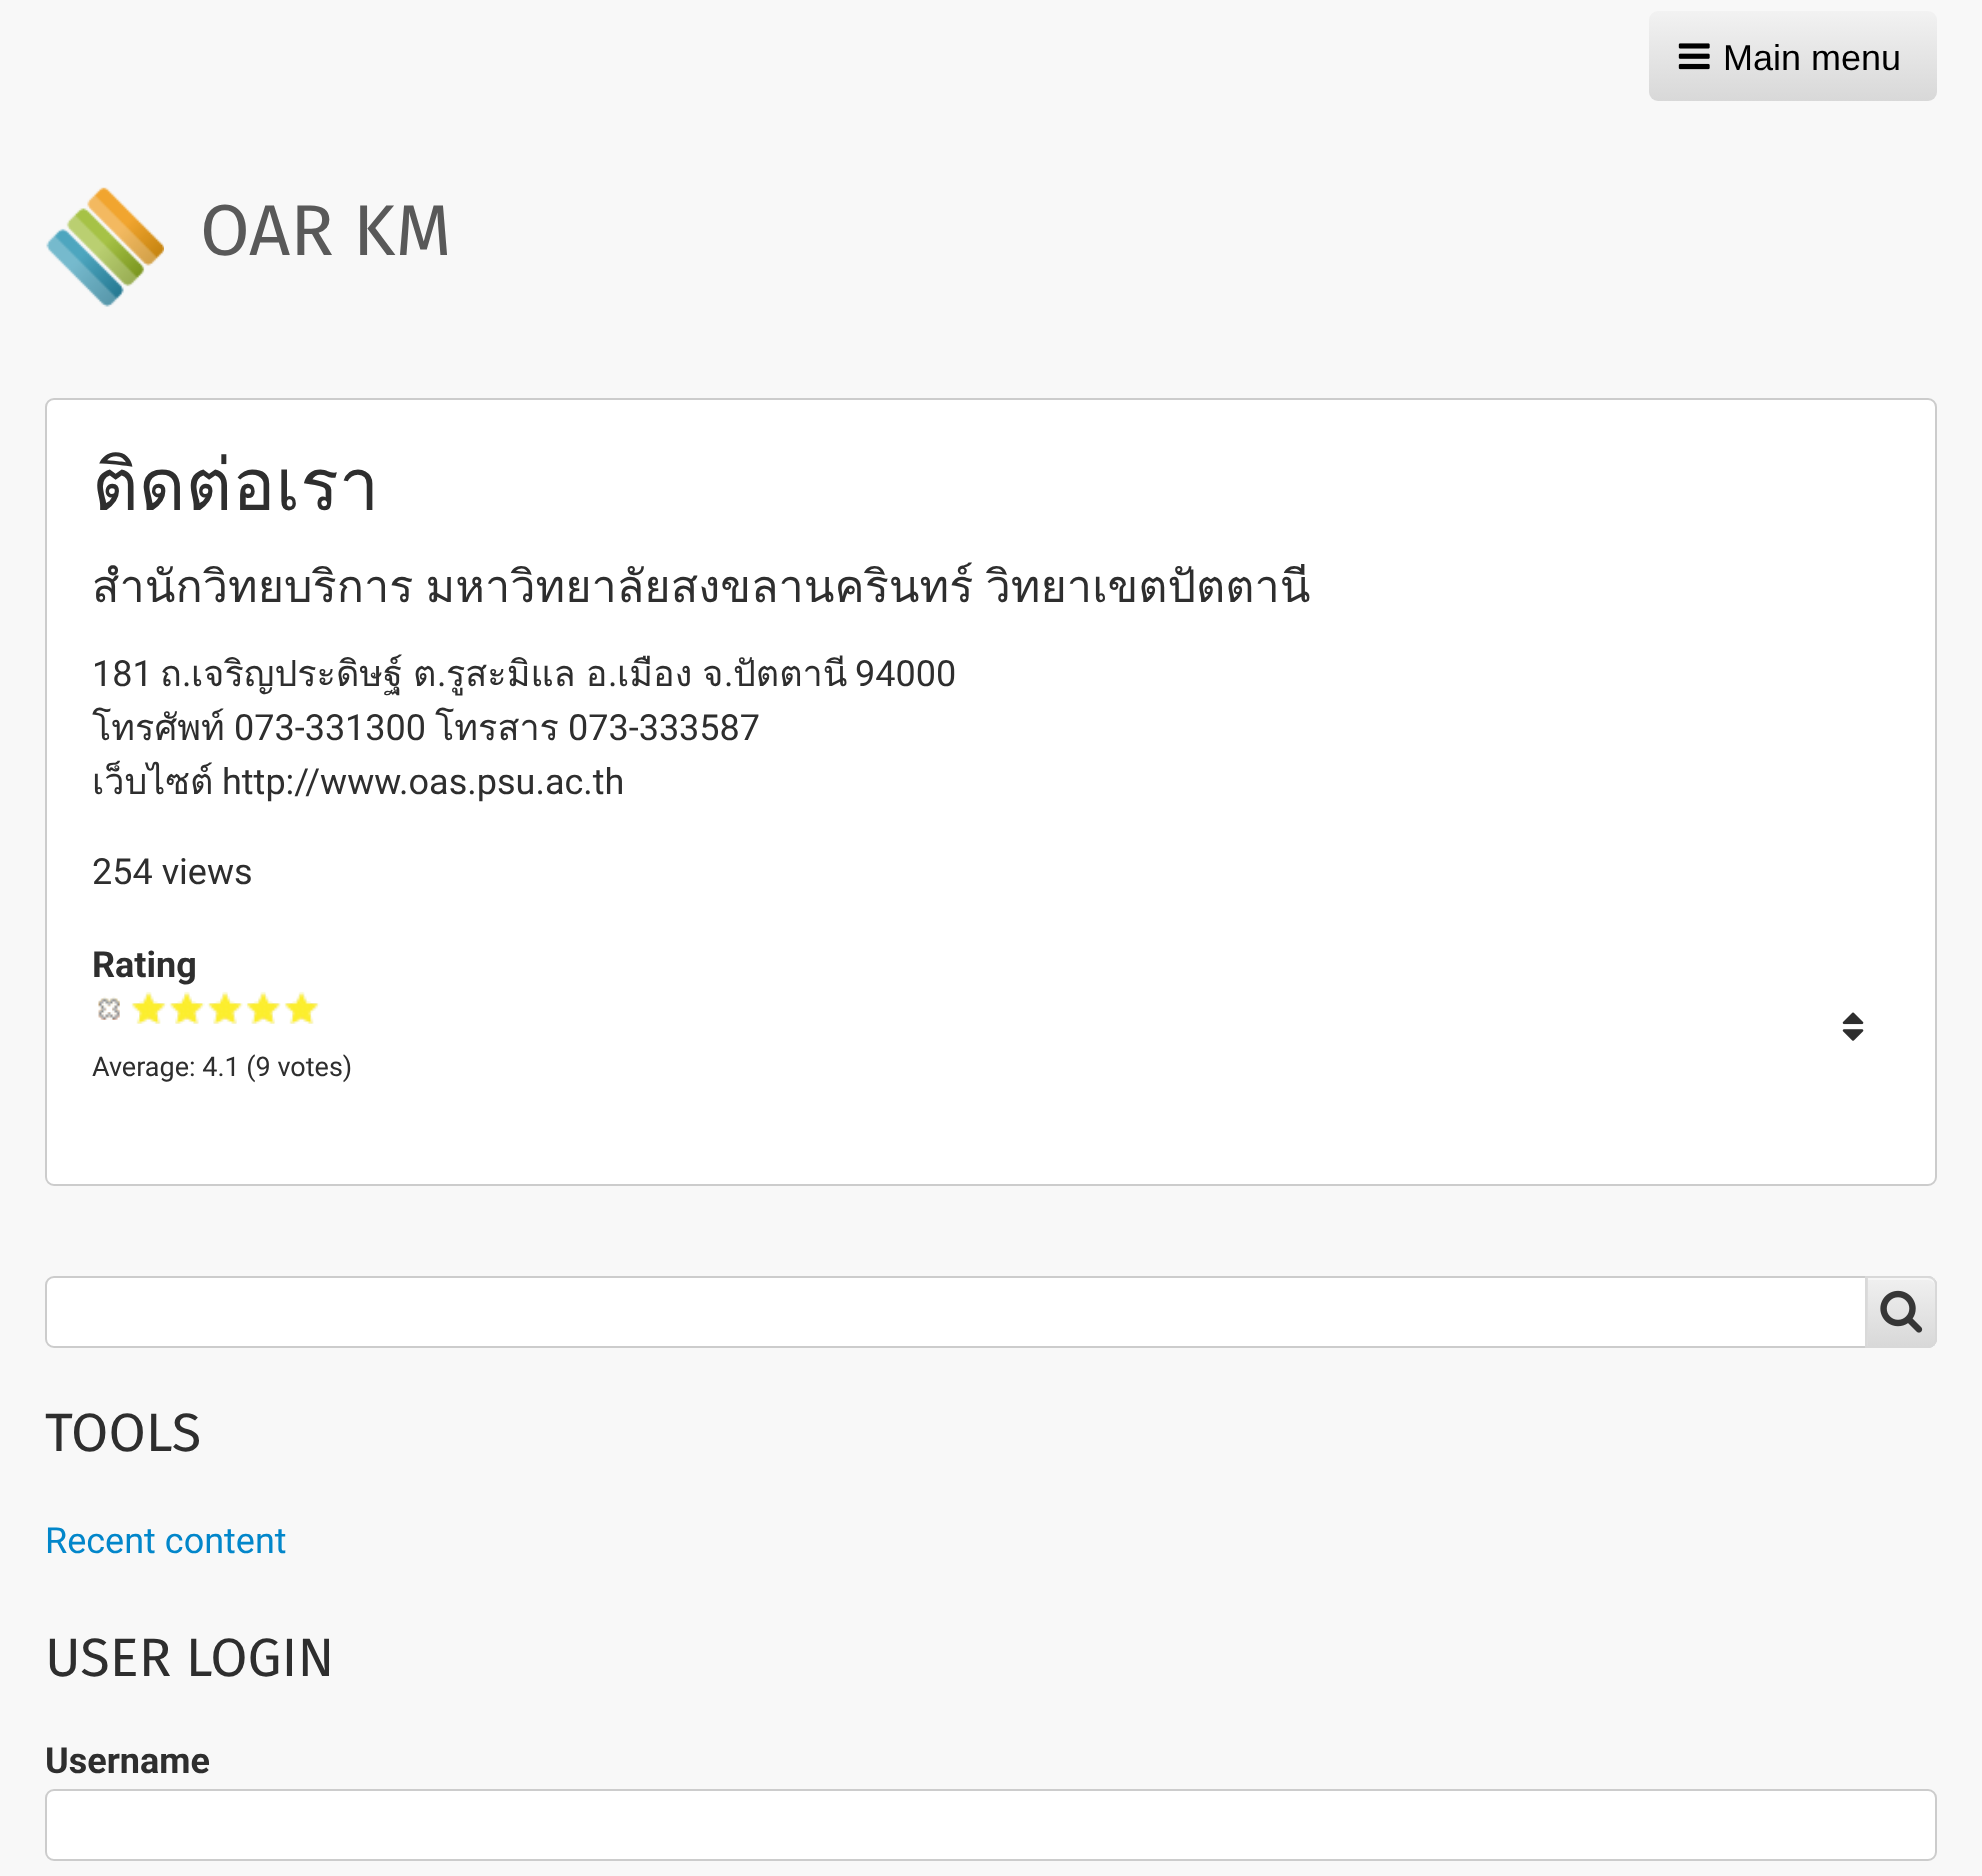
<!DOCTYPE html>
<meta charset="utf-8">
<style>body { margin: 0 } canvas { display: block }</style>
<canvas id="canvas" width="1982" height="1876"></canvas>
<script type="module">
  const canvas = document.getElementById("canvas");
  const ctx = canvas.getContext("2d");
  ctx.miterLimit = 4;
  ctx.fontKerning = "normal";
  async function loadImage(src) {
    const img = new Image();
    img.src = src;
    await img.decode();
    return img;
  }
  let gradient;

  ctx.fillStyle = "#f8f8f8";
  ctx.fillRect(0, 0, 1982, 1876);
  gradient = ctx.createLinearGradient(1793, 11, 1793, 101);
  gradient.addColorStop(0, "#f2f2f2");
  gradient.addColorStop(1, "#d8d8d8");
  ctx.fillStyle = gradient;
  ctx.beginPath();
  ctx.roundRect(1649, 11, 288, 90, 9);
  ctx.fill();
  ctx.drawImage(await loadImage("img1.png"), 1678, 43, 32, 27);
  ctx.font = "36px Liberation Sans";
  ctx.fillStyle = "#000000";
  ctx.fillText("Main menu", 1723, 70);
  ctx.drawImage(await loadImage("img2.png"), 46, 187, 118, 120);
  ctx.font = "72px Fira Sans";
  ctx.fillStyle = "#595959";
  ctx.fillText("OAR KM", 200, 255);
  ctx.fillStyle = "#ffffff";
  ctx.beginPath();
  ctx.roundRect(46, 399, 1890, 786, 8);
  ctx.fill();
  ctx.strokeStyle = "#cccccc";
  ctx.lineWidth = 2;
  ctx.stroke();
  ctx.font = "72px Loma";
  ctx.fillStyle = "#2e2e2e";
  ctx.fillText("ติดต่อเรา", 92, 510);
  ctx.wordSpacing = "-3px";
  ctx.font = "45px Loma";
  ctx.fillText("สำนักวิทยบริการ มหาวิทยาลัยสงขลานครินทร์ วิทยาเขตปัตตานี", 92, 602);
  ctx.wordSpacing = "0px";
  ctx.font = "36px Roboto";
  ctx.fillText("181", 92, 686);
  ctx.font = "36px Loma";
  ctx.fillText("ถ", 160, 686);
  ctx.font = "36px Roboto";
  ctx.fillText(".", 182, 686);
  ctx.wordSpacing = "-2px";
  ctx.font = "36px Loma";
  ctx.fillText("เจริญประดิษฐ์ ต", 191, 686);
  ctx.wordSpacing = "0px";
  ctx.font = "36px Roboto";
  ctx.fillText(".", 437, 686);
  ctx.wordSpacing = "-2px";
  ctx.font = "36px Loma";
  ctx.fillText("รูสะมิแล อ", 446, 686);
  ctx.wordSpacing = "0px";
  ctx.font = "36px Roboto";
  ctx.fillText(".", 608, 686);
  ctx.wordSpacing = "-2px";
  ctx.font = "36px Loma";
  ctx.fillText("เมือง จ", 617, 686);
  ctx.wordSpacing = "0px";
  ctx.font = "36px Roboto";
  ctx.fillText(".", 724, 686);
  ctx.font = "36px Loma";
  ctx.fillText("ปัตตานี", 733, 686);
  ctx.font = "36px Roboto";
  ctx.fillText("94000", 855, 686);
  ctx.font = "36px Loma";
  ctx.fillText("โทรศัพท์", 92, 740);
  ctx.font = "36px Roboto";
  ctx.fillText("073-331300", 234, 740);
  ctx.font = "36px Loma";
  ctx.fillText("โทรสาร", 435, 740);
  ctx.font = "36px Roboto";
  ctx.fillText("073-333587", 568, 740);
  ctx.font = "36px Loma";
  ctx.fillText("เว็บไซต์", 92, 794);
  ctx.font = "36px Roboto";
  ctx.fillText("http://www.oas.psu.ac.th", 222, 794);
  ctx.fillText("254 views", 92, 884);
  ctx.font = "bold 36px Roboto";
  ctx.fillText("Rating", 92, 977);
  ctx.drawImage(await loadImage("img3.png"), 98, 996, 22, 24);
  ctx.drawImage(await loadImage("img4.png"), 98, 997, 22, 23);
  ctx.drawImage(await loadImage("img5.png"), 132, 992, 34, 32);
  ctx.drawImage(await loadImage("img6.png"), 131, 991, 36, 33);
  ctx.drawImage(await loadImage("img7.png"), 170, 992, 35, 32);
  ctx.drawImage(await loadImage("img8.png"), 169, 991, 36, 33);
  ctx.drawImage(await loadImage("img9.png"), 208, 992, 35, 32);
  ctx.drawImage(await loadImage("img10.png"), 207, 991, 36, 33);
  ctx.drawImage(await loadImage("img11.png"), 247, 992, 34, 32);
  ctx.drawImage(await loadImage("img12.png"), 245, 991, 36, 33);
  ctx.drawImage(await loadImage("img13.png"), 285, 992, 34, 32);
  ctx.drawImage(await loadImage("img14.png"), 284, 991, 36, 33);
  ctx.drawImage(await loadImage("img15.png"), 1842, 1012, 22, 29);
  ctx.font = "27px Roboto";
  ctx.fillText("Average: 4.1 (9 votes)", 92, 1076);
  ctx.fillStyle = "#ffffff";
  ctx.beginPath();
  ctx.roundRect(46, 1277, 1890, 70, 8);
  ctx.fill();
  ctx.stroke();
  ctx.fillStyle = "rgba(216, 216, 216, 0.9)";
  ctx.beginPath();
  ctx.roundRect(1865, 1276, 72, 72, [0, 9, 9, 0]);
  ctx.fill();
  ctx.save();
  ctx.beginPath();
  ctx.roundRect(1865, 1276, 72, 72, [0, 9, 9, 0]);
  ctx.clip();
  gradient = ctx.createLinearGradient(1901, 1278, 1901, 1346);
  gradient.addColorStop(0, "rgba(242, 242, 242, 0.9)");
  gradient.addColorStop(1, "rgba(216, 216, 216, 0.9)");
  ctx.fillStyle = gradient;
  ctx.fillRect(1868, 1278, 67, 68);
  ctx.restore();
  ctx.drawImage(await loadImage("img16.png"), 1880, 1290, 43, 43);
  ctx.fillStyle = "#f6f6f6";
  ctx.beginPath();
  ctx.moveTo(1868, 1280);
  ctx.lineTo(1928, 1280);
  ctx.bezierCurveTo(1932, 1280, 1935, 1283, 1935, 1287);
  ctx.lineTo(1935, 1285);
  ctx.bezierCurveTo(1935, 1281, 1932, 1278, 1928, 1278);
  ctx.lineTo(1868, 1278);
  ctx.closePath();
  ctx.fill();
  ctx.beginPath();
  ctx.roundRect(1866, 1277, 70, 70, [0, 8, 8, 0]);
  ctx.strokeStyle = "rgba(216, 216, 216, 0.9)";
  ctx.stroke();
  ctx.font = "54px Fira Sans";
  ctx.fillStyle = "#2e2e2e";
  ctx.fillText("TOOLS", 45, 1451);
  ctx.font = "36px Roboto";
  ctx.fillStyle = "#0286ca";
  ctx.fillText("Recent content", 45, 1553);
  ctx.font = "54px Fira Sans";
  ctx.fillStyle = "#2e2e2e";
  ctx.fillText("USER LOGIN", 45, 1676);
  ctx.font = "bold 36px Roboto";
  ctx.fillText("Username", 45, 1773);
  ctx.fillStyle = "#ffffff";
  ctx.beginPath();
  ctx.roundRect(46, 1790, 1890, 70, 8);
  ctx.fill();
  ctx.strokeStyle = "#cccccc";
  ctx.stroke();
</script>
